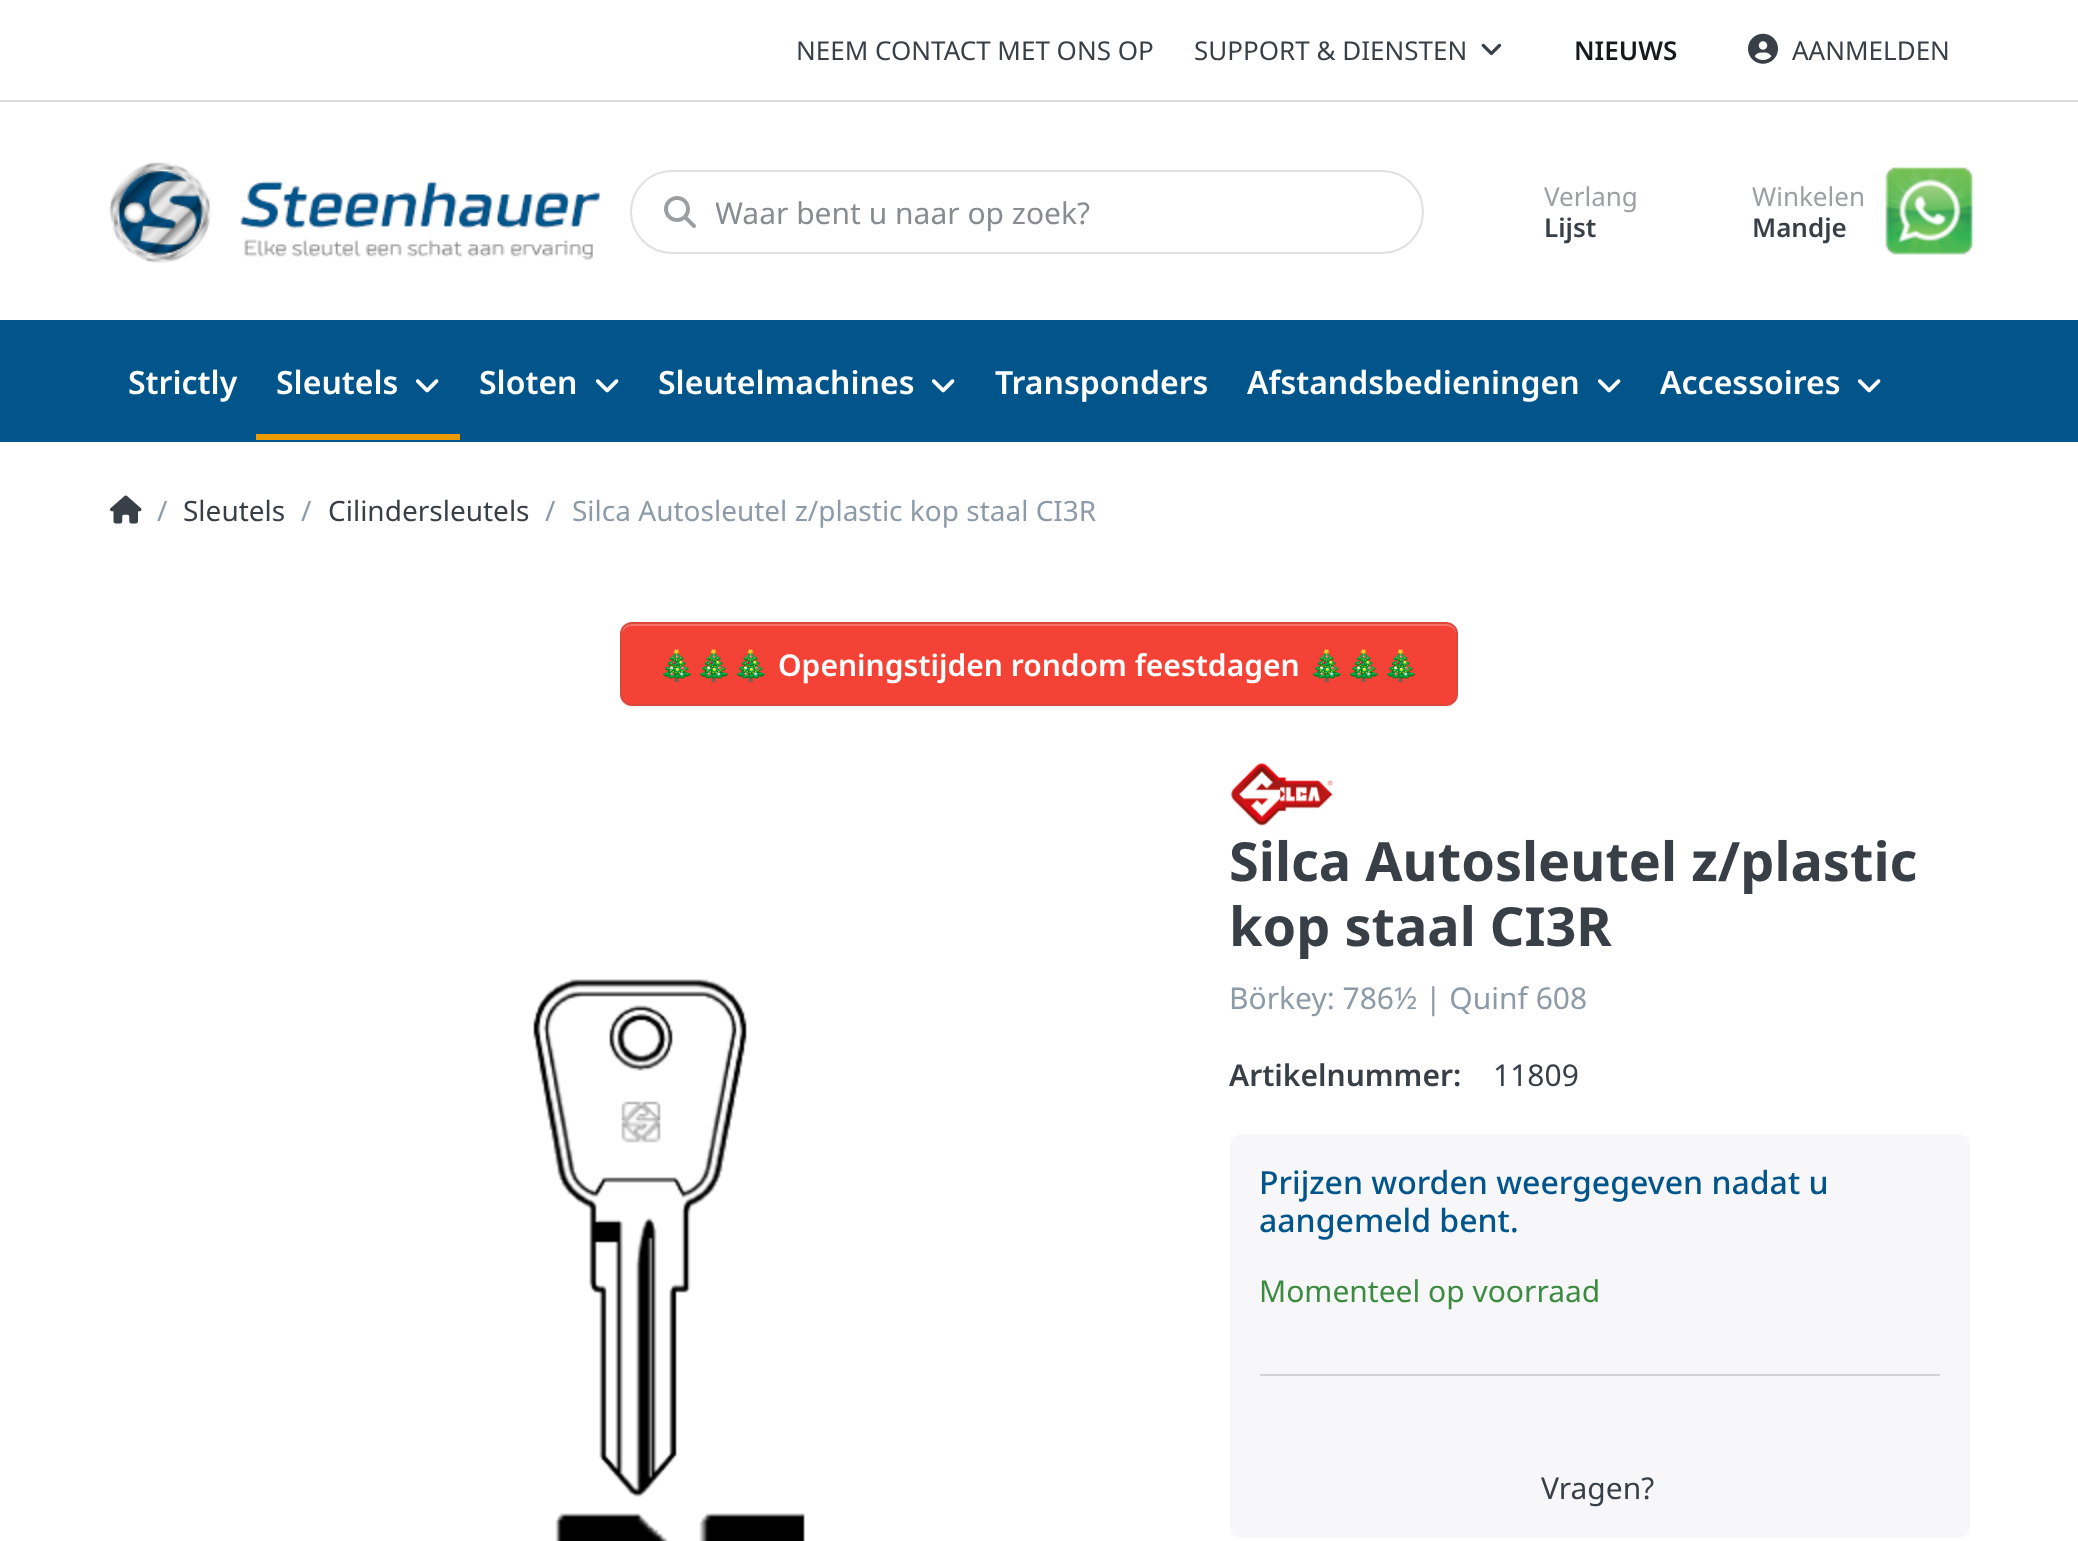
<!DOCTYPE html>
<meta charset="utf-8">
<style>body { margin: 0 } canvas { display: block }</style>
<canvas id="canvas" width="2078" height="1541"></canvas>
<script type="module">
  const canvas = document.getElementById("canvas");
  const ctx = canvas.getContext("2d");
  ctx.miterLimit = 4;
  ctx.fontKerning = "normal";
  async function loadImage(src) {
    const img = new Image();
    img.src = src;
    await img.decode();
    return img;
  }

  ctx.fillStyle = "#ffffff";
  ctx.fillRect(0, 0, 2078, 1541);
  ctx.fillStyle = "#dddddd";
  ctx.fillRect(0, 100, 2078, 2);
  ctx.font = "26px Noto Sans";
  ctx.fillStyle = "#393f46";
  ctx.fillText("NEEM CONTACT MET ONS OP", 796, 60);
  ctx.fillText("SUPPORT & DIENSTEN", 1194, 60);
  ctx.drawImage(await loadImage("img1.png"), 1481, 43, 21, 13);
  ctx.font = "600 26px Noto Sans";
  ctx.fillStyle = "#17191c";
  ctx.fillText("NIEUWS", 1574, 60);
  ctx.drawImage(await loadImage("img2.png"), 1748, 33, 30, 31);
  ctx.font = "26px Noto Sans";
  ctx.fillStyle = "#393f46";
  ctx.fillText("AANMELDEN", 1792, 60);
  ctx.drawImage(await loadImage("img3.png"), 109, 162, 492, 101);
  ctx.beginPath();
  ctx.roundRect(631, 171, 792, 82, 41);
  ctx.strokeStyle = "#e0e0e0";
  ctx.lineWidth = 2;
  ctx.stroke();
  ctx.drawImage(await loadImage("img4.png"), 664, 196, 32, 32);
  ctx.save();
  ctx.beginPath();
  ctx.rect(716, 192, 626, 40);
  ctx.clip();
  ctx.font = "30px Noto Sans";
  ctx.fillStyle = "#888c90";
  ctx.fillText("Waar bent u naar op zoek?", 715, 224);
  ctx.restore();
  ctx.fillStyle = "#9c9fa3";
  ctx.fillText("Verlang", 1544, 206);
  ctx.font = "600 26px Noto Sans";
  ctx.fillStyle = "#393f46";
  ctx.fillText("Lijst", 1544, 237);
  ctx.font = "26px Noto Sans";
  ctx.fillStyle = "#9c9fa3";
  ctx.fillText("Winkelen", 1752, 206);
  ctx.font = "600 26px Noto Sans";
  ctx.fillStyle = "#393f46";
  ctx.fillText("Mandje", 1752, 237);
  ctx.drawImage(await loadImage("img5.png"), 1885, 166, 88, 89);
  ctx.fillStyle = "#01558b";
  ctx.fillRect(0, 320, 2078, 122);
  ctx.font = "600 32px Noto Sans";
  ctx.fillStyle = "#ffffff";
  ctx.fillText("Strictly", 128, 394);
  ctx.fillText("Sleutels", 276, 394);
  ctx.drawImage(await loadImage("img6.png"), 415, 379, 24, 14);
  ctx.fillStyle = "#ee9b00";
  ctx.fillRect(256, 434, 204, 6);
  ctx.fillStyle = "#ffffff";
  ctx.fillText("Sloten", 479, 394);
  ctx.drawImage(await loadImage("img6.png"), 595, 379, 24, 14);
  ctx.fillText("Sleutelmachines", 658, 394);
  ctx.drawImage(await loadImage("img6.png"), 931, 379, 24, 14);
  ctx.fillText("Transponders", 995, 394);
  ctx.fillText("Afstandsbedieningen", 1247, 394);
  ctx.drawImage(await loadImage("img6.png"), 1597, 379, 24, 14);
  ctx.fillText("Accessoires", 1660, 394);
  ctx.drawImage(await loadImage("img6.png"), 1857, 379, 24, 14);
  ctx.drawImage(await loadImage("img7.png"), 110, 495, 32, 29);
  ctx.font = "28px Noto Sans";
  ctx.fillStyle = "#8d9ba9";
  ctx.fillText("/", 157, 521);
  ctx.fillStyle = "#393f46";
  ctx.fillText("Sleutels", 183, 521);
  ctx.fillStyle = "#8d9ba9";
  ctx.fillText("/", 301, 521);
  ctx.fillStyle = "#393f46";
  ctx.fillText("Cilindersleutels", 328, 521);
  ctx.fillStyle = "#8d9ba9";
  ctx.fillText("/", 545, 521);
  ctx.fillText("Silca Autosleutel z/plastic kop staal CI3R", 572, 521);
  ctx.fillStyle = "#f6f6f6";
  ctx.beginPath();
  ctx.moveTo(620, 694);
  ctx.lineTo(620, 696);
  ctx.bezierCurveTo(620, 703, 625, 708, 632, 708);
  ctx.lineTo(1446, 708);
  ctx.bezierCurveTo(1453, 708, 1458, 703, 1458, 696);
  ctx.lineTo(1458, 694);
  ctx.bezierCurveTo(1458, 701, 1453, 706, 1446, 706);
  ctx.lineTo(632, 706);
  ctx.bezierCurveTo(625, 706, 620, 701, 620, 694);
  ctx.closePath();
  ctx.fill();
  ctx.fillStyle = "#f44336";
  ctx.beginPath();
  ctx.roundRect(620, 622, 838, 84, 12);
  ctx.fill();
  ctx.fillStyle = "#f77268";
  ctx.beginPath();
  ctx.moveTo(632, 626);
  ctx.lineTo(1446, 626);
  ctx.bezierCurveTo(1452, 626, 1456, 630, 1456, 636);
  ctx.lineTo(1456, 634);
  ctx.bezierCurveTo(1456, 628, 1452, 624, 1446, 624);
  ctx.lineTo(632, 624);
  ctx.bezierCurveTo(626, 624, 622, 628, 622, 634);
  ctx.lineTo(622, 636);
  ctx.bezierCurveTo(622, 630, 626, 626, 632, 626);
  ctx.closePath();
  ctx.fill();
  ctx.beginPath();
  ctx.roundRect(621, 623, 836, 82, 11);
  ctx.strokeStyle = "rgba(89, 97, 103, 0.15)";
  ctx.stroke();
  ctx.font = "bold 30px Noto Color Emoji";
  ctx.fillStyle = "#ffffff";
  ctx.fillText("🎄🎄🎄", 658, 676);
  ctx.font = "600 30px Noto Sans";
  ctx.fillText("Openingstijden rondom feestdagen", 778, 676);
  ctx.font = "bold 30px Noto Color Emoji";
  ctx.fillText("🎄🎄🎄", 1308, 676);
  ctx.drawImage(await loadImage("img8.png"), 533, 979, 272, 562);
  ctx.drawImage(await loadImage("img9.png"), 1230, 762, 104, 64);
  ctx.font = "bold 54px Noto Sans";
  ctx.fillStyle = "#393f46";
  ctx.fillText("Silca Autosleutel z/plastic", 1229, 881);
  ctx.fillText("kop staal CI3R", 1229, 946);
  ctx.font = "30px Noto Sans";
  ctx.fillStyle = "#8d9ba9";
  ctx.fillText("Börkey: 786½ | Quinf 608", 1229, 1009);
  ctx.font = "600 30px Noto Sans";
  ctx.fillStyle = "#393f46";
  ctx.fillText("Artikelnummer:", 1229, 1086);
  ctx.font = "30px Noto Sans";
  ctx.fillText("11809", 1493, 1086);
  ctx.fillStyle = "#f7f7f9";
  ctx.beginPath();
  ctx.roundRect(1230, 1134, 740, 404, 12);
  ctx.fill();
  ctx.font = "500 32px Noto Sans";
  ctx.fillStyle = "#01558b";
  ctx.fillText("Prijzen worden weergegeven nadat u", 1259, 1194);
  ctx.fillText("aangemeld bent.", 1259, 1232);
  ctx.font = "30px Noto Sans";
  ctx.fillStyle = "#3d8b40";
  ctx.fillText("Momenteel op voorraad", 1259, 1302);
  ctx.fillStyle = "#d2d2d4";
  ctx.fillRect(1260, 1374, 680, 2);
  ctx.fillStyle = "#393f46";
  ctx.fillText("Vragen?", 1541, 1499);
</script>
